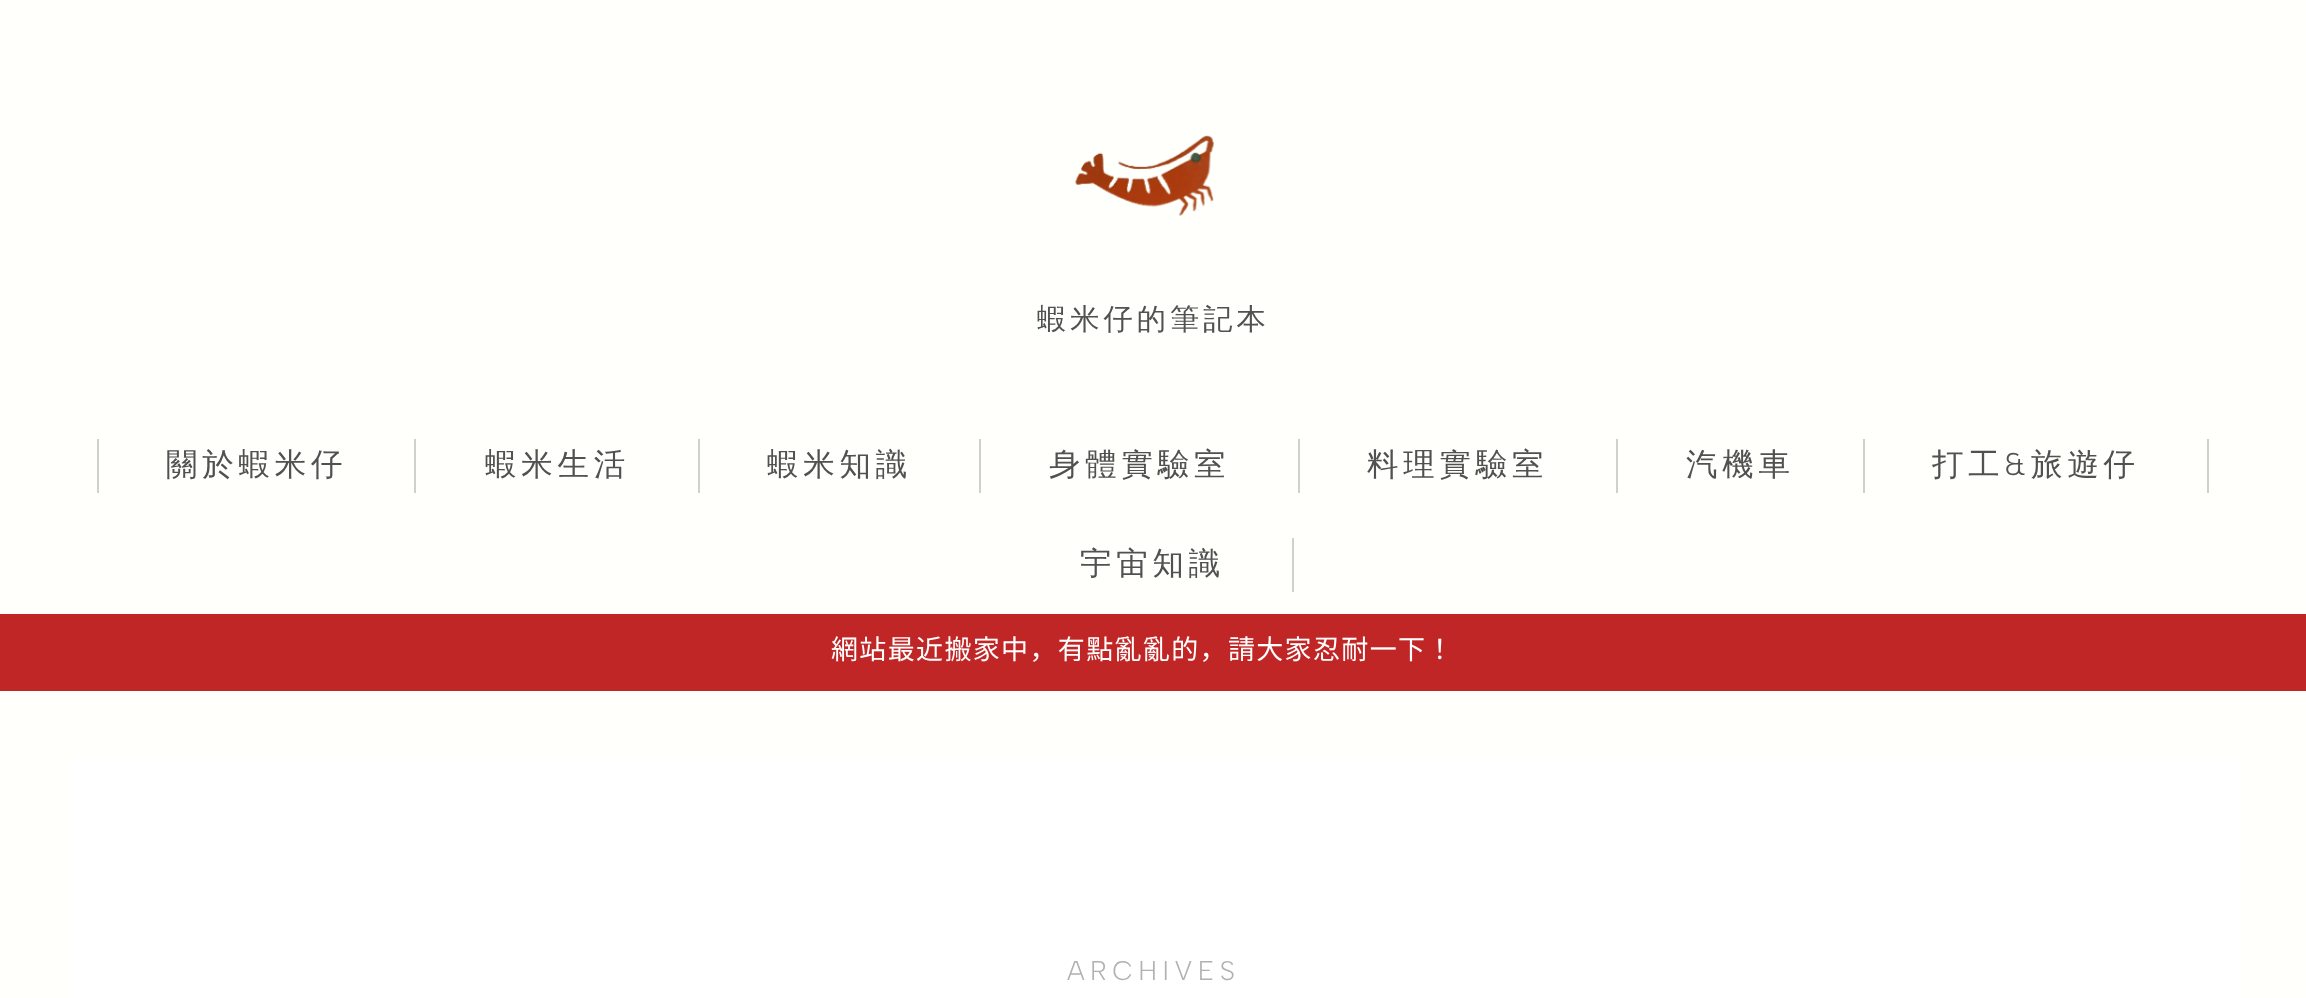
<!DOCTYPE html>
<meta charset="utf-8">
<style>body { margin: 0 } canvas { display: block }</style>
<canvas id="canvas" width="2306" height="998"></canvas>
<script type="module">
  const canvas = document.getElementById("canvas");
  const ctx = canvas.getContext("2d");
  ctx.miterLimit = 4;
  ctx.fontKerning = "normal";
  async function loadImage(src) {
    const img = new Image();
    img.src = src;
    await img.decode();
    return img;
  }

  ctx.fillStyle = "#fffffc";
  ctx.fillRect(0, 0, 2306, 998);
  ctx.drawImage(await loadImage("img1.png"), 1075, 135, 140, 81);
  ctx.letterSpacing = "4px";
  ctx.font = "500 29.25px WenQuanYi Zen Hei";
  ctx.fillStyle = "#515151";
  ctx.fillText("蝦米仔的筆記本", 1037, 329);
  ctx.fillStyle = "#d0d0ce";
  ctx.fillRect(414, 439, 2, 54);
  ctx.fillRect(97, 439, 2, 54);
  ctx.letterSpacing = "4.75px";
  ctx.font = "500 31.5px WenQuanYi Zen Hei";
  ctx.fillStyle = "#515151";
  ctx.fillText("關於蝦米仔", 166, 475);
  ctx.fillStyle = "#d0d0ce";
  ctx.fillRect(698, 439, 2, 54);
  ctx.fillStyle = "#515151";
  ctx.fillText("蝦米生活", 485, 475);
  ctx.fillStyle = "#d0d0ce";
  ctx.fillRect(979, 439, 2, 54);
  ctx.fillStyle = "#515151";
  ctx.fillText("蝦米知識", 767, 475);
  ctx.fillStyle = "#d0d0ce";
  ctx.fillRect(1298, 439, 2, 54);
  ctx.fillStyle = "#515151";
  ctx.fillText("身體實驗室", 1049, 475);
  ctx.fillStyle = "#d0d0ce";
  ctx.fillRect(1616, 439, 2, 54);
  ctx.fillStyle = "#515151";
  ctx.fillText("料理實驗室", 1367, 475);
  ctx.fillStyle = "#d0d0ce";
  ctx.fillRect(1863, 439, 2, 54);
  ctx.fillStyle = "#515151";
  ctx.fillText("汽機車", 1686, 475);
  ctx.fillStyle = "#d0d0ce";
  ctx.fillRect(2207, 439, 2, 54);
  ctx.fillStyle = "#515151";
  ctx.fillText("打工", 1932, 475);
  ctx.font = "300 31.5px Albert Sans";
  ctx.fillText("&", 2004, 475);
  ctx.font = "500 31.5px WenQuanYi Zen Hei";
  ctx.fillText("旅遊仔", 2031, 475);
  ctx.fillStyle = "#d0d0ce";
  ctx.fillRect(1292, 538, 2, 54);
  ctx.fillStyle = "#515151";
  ctx.fillText("宇宙知識", 1080, 574);
  ctx.fillStyle = "#c12626";
  ctx.fillRect(0, 614, 2306, 77);
  ctx.letterSpacing = "1.35px";
  ctx.font = "27px Noto Sans CJK JP";
  ctx.fillStyle = "#ffffff";
  ctx.fillText("網站最近搬家中，有點亂亂的，請大家忍耐一下！", 831, 659);
  ctx.beginPath();
  ctx.roundRect(68, 758, 2171, 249, 9);
  ctx.fill();
  ctx.letterSpacing = "5.5px";
  ctx.font = "300 27px Albert Sans";
  ctx.fillStyle = "#b1b1b1";
  ctx.fillText("ARCHIVES", 1067, 980);
</script>
